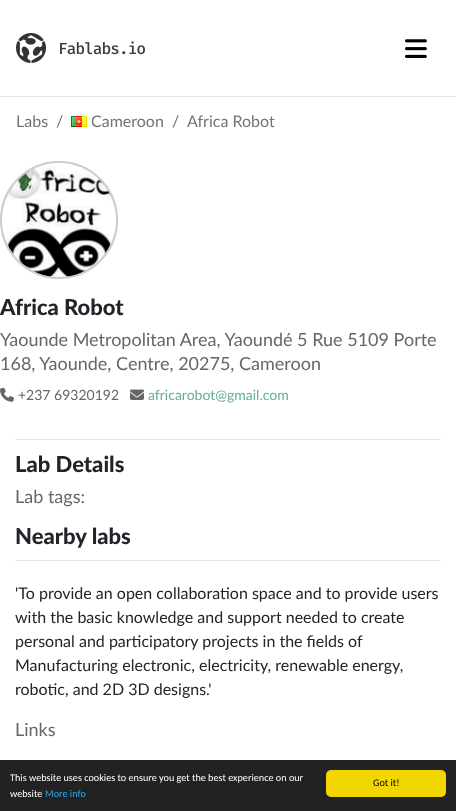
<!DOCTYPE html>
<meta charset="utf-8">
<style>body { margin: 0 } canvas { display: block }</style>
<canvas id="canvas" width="456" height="811"></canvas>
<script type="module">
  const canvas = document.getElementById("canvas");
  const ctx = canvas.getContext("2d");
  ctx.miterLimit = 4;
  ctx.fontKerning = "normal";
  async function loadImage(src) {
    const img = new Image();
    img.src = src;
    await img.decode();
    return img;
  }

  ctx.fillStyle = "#ffffff";
  ctx.fillRect(0, 0, 456, 811);
  ctx.fillStyle = "#e5e5e5";
  ctx.fillRect(0, 96, 456, 1);
  ctx.drawImage(await loadImage("img1.png"), 16, 33, 129, 30);
  ctx.drawImage(await loadImage("img2.png"), 405, 39, 22, 19);
  ctx.font = "16px Lato";
  ctx.fillStyle = "#747474";
  ctx.fillText("Labs", 16, 127);
  ctx.fillStyle = "#6c757d";
  ctx.fillText("/", 56, 127);
  ctx.drawImage(await loadImage("img3.png"), 71, 116, 16, 11);
  ctx.fillStyle = "#747474";
  ctx.fillText("Cameroon", 91, 127);
  ctx.fillStyle = "#6c757d";
  ctx.fillText("/", 172, 127);
  ctx.fillStyle = "#747474";
  ctx.fillText("Africa Robot", 187, 127);
  ctx.fillStyle = "#d8d8d8";
  ctx.beginPath();
  ctx.arc(59, 220, 58, 0, Math.PI * 2);
  ctx.fill();
  ctx.strokeStyle = "#cccccc";
  ctx.lineWidth = 2;
  ctx.stroke();
  ctx.drawImage(await loadImage("img4.png"), 2, 163, 114, 114);
  ctx.font = "900 22px Lato";
  ctx.fillStyle = "#212529";
  ctx.fillText("Africa Robot", 0, 315);
  ctx.font = "18px Lato";
  ctx.fillStyle = "#666666";
  ctx.fillText("Yaounde Metropolitan Area, Yaoundé 5 Rue 5109 Porte", 0, 346);
  ctx.fillText("168, Yaounde, Centre, 20275, Cameroon", 0, 370);
  ctx.drawImage(await loadImage("img5.png"), 0, 387, 14, 15);
  ctx.font = "14px Lato";
  ctx.fillText("+237 69320192", 18, 400);
  ctx.drawImage(await loadImage("img6.png"), 130, 389, 14, 11);
  ctx.fillStyle = "#67ac98";
  ctx.fillText("africarobot@gmail.com", 148, 400);
  ctx.fillStyle = "#e5e5e5";
  ctx.fillRect(15, 439, 426, 1);
  ctx.font = "900 22px Lato";
  ctx.fillStyle = "#212529";
  ctx.fillText("Lab Details", 15, 472);
  ctx.font = "18px Lato";
  ctx.fillStyle = "#666666";
  ctx.fillText("Lab tags:", 15, 503);
  ctx.font = "900 22px Lato";
  ctx.fillStyle = "#212529";
  ctx.fillText("Nearby labs", 15, 544);
  ctx.fillStyle = "#e5e5e5";
  ctx.fillRect(15, 560, 426, 1);
  ctx.font = "16px Lato";
  ctx.fillStyle = "#212529";
  ctx.fillText("'To provide an open collaboration space and to provide users", 15, 599);
  ctx.fillText("with the basic knowledge and support needed to create", 15, 623);
  ctx.fillText("personal and participatory projects in the fields of", 15, 647);
  ctx.fillText("Manufacturing electronic, electricity, renewable energy,", 15, 671);
  ctx.fillText("robotic, and 2D 3D designs.'", 15, 695);
  ctx.font = "18px Lato";
  ctx.fillStyle = "#666666";
  ctx.fillText("Links", 15, 736);
  ctx.fillStyle = "#222222";
  ctx.fillRect(0, 760, 456, 51);
  ctx.font = "10.2px Carlito";
  ctx.fillStyle = "#ffffff";
  ctx.fillText("This website uses cookies to ensure you get the best experience on our", 10, 781);
  ctx.fillText("website", 10, 797);
  ctx.fillStyle = "#31a8f0";
  ctx.fillText("More info", 45, 797);
  ctx.fillStyle = "#f1d600";
  ctx.beginPath();
  ctx.roundRect(326, 770, 120, 27, 5);
  ctx.fill();
  ctx.fillStyle = "#000000";
  ctx.fillText("Got it!", 373, 786);
</script>
